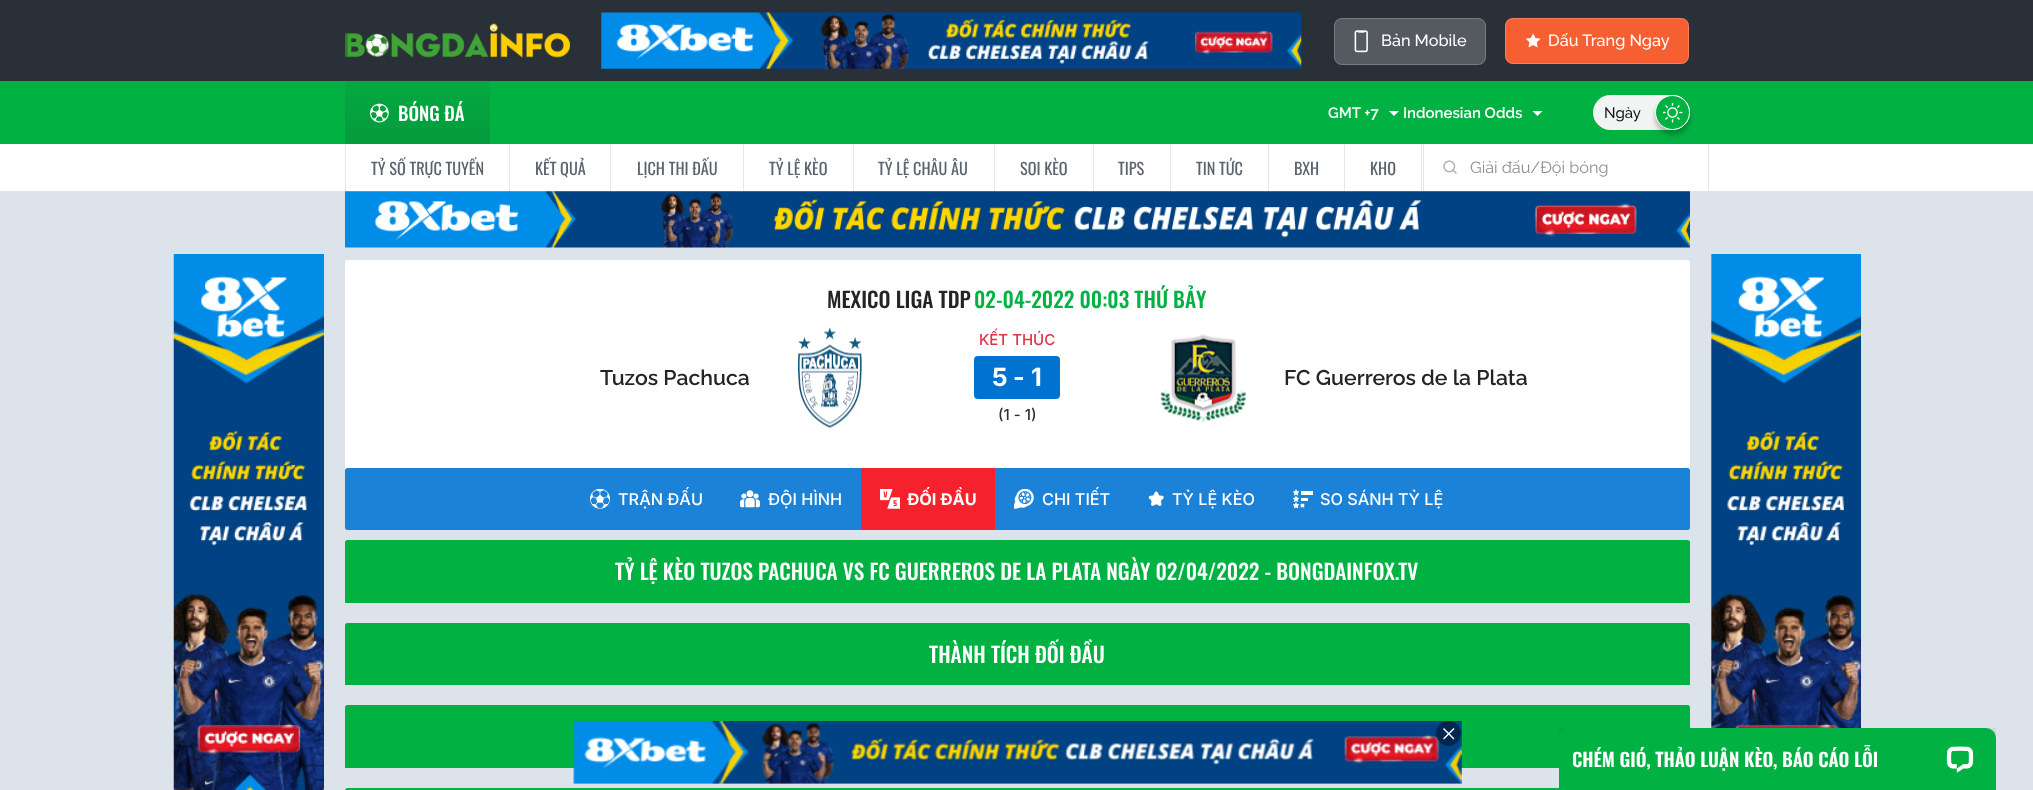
<!DOCTYPE html>
<meta charset="utf-8">
<style>body { margin: 0 } canvas { display: block }</style>
<canvas id="canvas" width="2033" height="790"></canvas>
<script type="module">
  const canvas = document.getElementById("canvas");
  const ctx = canvas.getContext("2d");
  ctx.miterLimit = 4;
  ctx.fontKerning = "normal";
  async function loadImage(src) {
    const img = new Image();
    img.src = src;
    await img.decode();
    return img;
  }
  let gradient;

  ctx.fillStyle = "#dce3ea";
  ctx.fillRect(0, 0, 2033, 790);
  ctx.fillStyle = "#2a3038";
  ctx.fillRect(0, 0, 2033, 81);
  ctx.drawImage(await loadImage("img1.png"), 345, 23, 225, 35);
  ctx.drawImage(await loadImage("img2.png"), 601, 12, 701, 57);
  ctx.fillStyle = "#555960";
  ctx.beginPath();
  ctx.roundRect(1334, 18, 152, 47, 8);
  ctx.fill();
  ctx.beginPath();
  ctx.roundRect(1334.5, 18.5, 151, 46, 7.5);
  ctx.strokeStyle = "rgba(255, 255, 255, 0.2)";
  ctx.stroke();
  ctx.drawImage(await loadImage("img3.png"), 1354, 30, 14, 23);
  ctx.font = "500 16.25px Raleway";
  ctx.fillStyle = "#ffffff";
  ctx.fillText("Bản Mobile", 1381, 46);
  ctx.fillStyle = "#f55f31";
  ctx.beginPath();
  ctx.roundRect(1505, 18, 184, 46, 8);
  ctx.fill();
  ctx.beginPath();
  ctx.roundRect(1505.5, 18.5, 183, 45, 7.5);
  ctx.stroke();
  ctx.drawImage(await loadImage("img4.png"), 1525, 33, 16, 15);
  ctx.fillStyle = "#ffffff";
  ctx.fillText("Dấu Trang Ngay", 1548, 46);
  ctx.fillStyle = "#01b243";
  ctx.fillRect(0, 81, 2033, 63);
  gradient = ctx.createLinearGradient(418, 81, 418, 144);
  gradient.addColorStop(0, "#04a941");
  gradient.addColorStop(1, "#059b3d");
  ctx.fillStyle = gradient;
  ctx.fillRect(345, 81, 145, 63);
  ctx.drawImage(await loadImage("img5.png"), 370, 103, 19, 20);
  ctx.font = "500 18.75px Oswald";
  ctx.fillStyle = "#ffffff";
  ctx.fillText("BÓNG ĐÁ", 398, 121);
  ctx.font = "600 15px Raleway";
  ctx.fillText("GMT +7", 1328, 118);
  ctx.beginPath();
  ctx.moveTo(1389, 111);
  ctx.lineTo(1399, 111);
  ctx.lineTo(1394, 116);
  ctx.closePath();
  ctx.fill();
  ctx.fillText("Indonesian Odds", 1403, 118);
  ctx.beginPath();
  ctx.moveTo(1532.5, 111);
  ctx.lineTo(1542.5, 111);
  ctx.lineTo(1537.5, 116);
  ctx.closePath();
  ctx.fill();
  ctx.fillStyle = "#f1f4f2";
  ctx.beginPath();
  ctx.roundRect(1593, 95, 97, 35, 17.5);
  ctx.fill();
  ctx.font = "500 15px Raleway";
  ctx.fillStyle = "#141417";
  ctx.fillText("Ngày", 1604, 118);
  ctx.fillStyle = "rgba(0, 0, 0, 0.25)";
  ctx.filter = "blur(2.5px)";
  ctx.beginPath();
  ctx.roundRect(1655, 100, 35, 35, 17.5);
  ctx.fill();
  ctx.filter = "none";
  ctx.fillStyle = "#01b243";
  ctx.beginPath();
  ctx.arc(1672.5, 112.5, 17, 0, Math.PI * 2);
  ctx.fill();
  ctx.strokeStyle = "#ffffff";
  ctx.stroke();
  ctx.drawImage(await loadImage("img6.png"), 1663, 103, 20, 20);
  ctx.fillStyle = "#ffffff";
  ctx.fillRect(0, 144, 2033, 47);
  ctx.fillStyle = "#e7e7e8";
  ctx.fillRect(509, 144, 1, 47);
  ctx.fillRect(345, 144, 1, 47);
  ctx.font = "16.25px Oswald";
  ctx.fillStyle = "#5b636d";
  ctx.fillText("TỶ SỐ TRỰC TUYẾN", 371, 175);
  ctx.fillStyle = "#e7e7e8";
  ctx.fillRect(610, 144, 1, 47);
  ctx.fillStyle = "#5b636d";
  ctx.fillText("KẾT QUẢ", 535, 175);
  ctx.fillStyle = "#e7e7e8";
  ctx.fillRect(743, 144, 1, 47);
  ctx.fillStyle = "#5b636d";
  ctx.fillText("LỊCH THI ĐẤU", 637, 175);
  ctx.fillStyle = "#e7e7e8";
  ctx.fillRect(853, 144, 1, 47);
  ctx.fillStyle = "#5b636d";
  ctx.fillText("TỶ LỆ KÈO", 769, 175);
  ctx.fillStyle = "#e7e7e8";
  ctx.fillRect(994, 144, 1, 47);
  ctx.fillStyle = "#5b636d";
  ctx.fillText("TỶ LỆ CHÂU ÂU", 878, 175);
  ctx.fillStyle = "#e7e7e8";
  ctx.fillRect(1093, 144, 1, 47);
  ctx.fillStyle = "#5b636d";
  ctx.fillText("SOI KÈO", 1020, 175);
  ctx.fillStyle = "#e7e7e8";
  ctx.fillRect(1170, 144, 1, 47);
  ctx.fillStyle = "#5b636d";
  ctx.fillText("TIPS", 1118, 175);
  ctx.fillStyle = "#e7e7e8";
  ctx.fillRect(1268, 144, 1, 47);
  ctx.fillStyle = "#5b636d";
  ctx.fillText("TIN TỨC", 1196, 175);
  ctx.fillStyle = "#e7e7e8";
  ctx.fillRect(1344, 144, 1, 47);
  ctx.fillStyle = "#5b636d";
  ctx.fillText("BXH", 1294, 175);
  ctx.fillStyle = "#e7e7e8";
  ctx.fillRect(1421, 144, 1, 47);
  ctx.fillStyle = "#5b636d";
  ctx.fillText("KHO", 1370, 175);
  ctx.fillStyle = "#e7e7e8";
  ctx.fillRect(1708, 144, 1, 47);
  ctx.fillRect(1423, 144, 1, 47);
  ctx.drawImage(await loadImage("img7.png"), 1443, 160, 14, 14);
  ctx.font = "16.25px Raleway";
  ctx.fillStyle = "#8d8e91";
  ctx.fillText("Giải đấu/Đội bóng", 1470, 173);
  ctx.drawImage(await loadImage("img8.png"), 345, 191, 1345, 57);
  ctx.drawImage(await loadImage("img9.png"), 173, 254, 151, 536);
  ctx.fillStyle = "#ffffff";
  ctx.beginPath();
  ctx.roundRect(345, 260, 1345, 270, 2.5);
  ctx.fill();
  ctx.font = "500 21.25px Oswald";
  ctx.fillStyle = "#232425";
  ctx.fillText("MEXICO LIGA TDP", 827, 308);
  ctx.fillStyle = "#01b243";
  ctx.fillText("02-04-2022 00:03 THỨ BẢY", 974, 308);
  ctx.font = "600 21.25px Raleway";
  ctx.fillStyle = "#232425";
  ctx.fillText("Tuzos Pachuca", 600, 385);
  ctx.drawImage(await loadImage("img10.png"), 798, 327, 64, 101);
  ctx.font = "500 15px Inter";
  ctx.fillStyle = "#dc3545";
  ctx.fillText("KẾT THÚC", 979, 345);
  ctx.fillStyle = "#0073d0";
  ctx.beginPath();
  ctx.roundRect(974, 356, 86, 43, 4);
  ctx.fill();
  ctx.font = "bold 25px Inter";
  ctx.fillStyle = "#ffffff";
  ctx.fillText("5", 992, 386);
  ctx.fillText("-", 1013, 386);
  ctx.fillText("1", 1031, 386);
  ctx.font = "500 15px Inter";
  ctx.fillStyle = "#2a3038";
  ctx.fillText("(1 - 1)", 998, 420);
  ctx.drawImage(await loadImage("img11.png"), 1160, 334, 87, 89);
  ctx.font = "600 21.25px Raleway";
  ctx.fillStyle = "#232425";
  ctx.fillText("FC Guerreros de la Plata", 1284, 385);
  ctx.fillStyle = "#1c82d7";
  ctx.beginPath();
  ctx.roundRect(345, 468, 1345, 62, 2.5);
  ctx.fill();
  ctx.drawImage(await loadImage("img12.png"), 590, 489, 20, 20);
  ctx.font = "500 16.25px Inter";
  ctx.fillStyle = "#ffffff";
  ctx.fillText("TRẬN ĐẤU", 618, 505);
  ctx.drawImage(await loadImage("img13.png"), 740, 490, 20, 18);
  ctx.fillText("ĐỘI HÌNH", 768, 505);
  ctx.fillStyle = "#f5222d";
  ctx.fillRect(861, 468, 134, 62);
  ctx.drawImage(await loadImage("img14.png"), 880, 489, 20, 20);
  ctx.font = "bold 16.25px Inter";
  ctx.fillStyle = "#ffffff";
  ctx.fillText("ĐỐI ĐẦU", 907, 505);
  ctx.drawImage(await loadImage("img15.png"), 1014, 489, 20, 20);
  ctx.font = "500 16.25px Inter";
  ctx.fillText("CHI TIẾT", 1042, 505);
  ctx.drawImage(await loadImage("img16.png"), 1148, 491, 16, 15);
  ctx.fillText("TỶ LỆ KÈO", 1172, 505);
  ctx.drawImage(await loadImage("img17.png"), 1293, 489, 20, 20);
  ctx.fillText("SO SÁNH TỶ LỆ", 1320, 505);
  ctx.fillStyle = "#01b243";
  ctx.beginPath();
  ctx.roundRect(345, 540, 1345, 63, [2.5, 2.5, 0, 0]);
  ctx.fill();
  ctx.font = "500 21.25px Oswald";
  ctx.fillStyle = "#ffffff";
  ctx.fillText("TỶ LỆ KÈO TUZOS PACHUCA VS FC GUERREROS DE LA PLATA NGÀY 02/04/2022 - BONGDAINFOX.TV", 615, 580);
  ctx.fillStyle = "#01b243";
  ctx.beginPath();
  ctx.roundRect(345, 623, 1345, 62, [2.5, 2.5, 0, 0]);
  ctx.fill();
  ctx.fillStyle = "#ffffff";
  ctx.fillText("THÀNH TÍCH ĐỐI ĐẦU", 929, 663);
  ctx.fillStyle = "#01b243";
  ctx.beginPath();
  ctx.roundRect(345, 705, 1345, 63, [2.5, 2.5, 0, 0]);
  ctx.fill();
  ctx.beginPath();
  ctx.moveTo(347.5, 788);
  ctx.lineTo(1687.5, 788);
  ctx.bezierCurveTo(1689, 788, 1690, 789, 1690, 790.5);
  ctx.lineTo(1690, 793);
  ctx.lineTo(345, 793);
  ctx.lineTo(345, 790.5);
  ctx.bezierCurveTo(345, 789, 346, 788, 347.5, 788);
  ctx.closePath();
  ctx.fill();
  ctx.drawImage(await loadImage("img18.png"), 1711, 254, 150, 474);
  ctx.drawImage(await loadImage("img19.png"), 573, 721, 889, 63);
  ctx.fillStyle = "rgba(0, 0, 0, 0.4)";
  ctx.beginPath();
  ctx.arc(1448.5, 733.5, 12.5, 0, Math.PI * 2);
  ctx.fill();
  ctx.fillStyle = "#ffffff";
  ctx.beginPath();
  ctx.moveTo(1453.5, 728);
  ctx.lineTo(1454.5, 729);
  ctx.lineTo(1444, 739.5);
  ctx.lineTo(1443, 738.5);
  ctx.closePath();
  ctx.fill();
  ctx.beginPath();
  ctx.moveTo(1443, 729);
  ctx.lineTo(1444, 728);
  ctx.lineTo(1454.5, 738.5);
  ctx.lineTo(1453.5, 739.5);
  ctx.closePath();
  ctx.fill();
  ctx.save();
  ctx.beginPath();
  ctx.rect(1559, 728, 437, 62);
  ctx.clip();
  ctx.fillStyle = "rgba(0, 0, 0, 0.3)";
  ctx.filter = "blur(7.5px)";
  ctx.beginPath();
  ctx.roundRect(1559, 733, 437, 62, 10);
  ctx.fill();
  ctx.filter = "none";
  ctx.restore();
  ctx.fillStyle = "#01b243";
  ctx.beginPath();
  ctx.roundRect(1559, 728, 437, 62, [10, 10, 0, 0]);
  ctx.fill();
  ctx.save();
  ctx.beginPath();
  ctx.rect(1573, 745, 360, 28);
  ctx.clip();
  ctx.font = "600 18.75px Oswald";
  ctx.fillStyle = "#ffffff";
  ctx.fillText("CHÉM GIÓ, THẢO LUẬN KÈO, BÁO CÁO LỖI", 1572, 767);
  ctx.restore();
  ctx.drawImage(await loadImage("img20.png"), 1946, 746, 28, 27);
</script>
